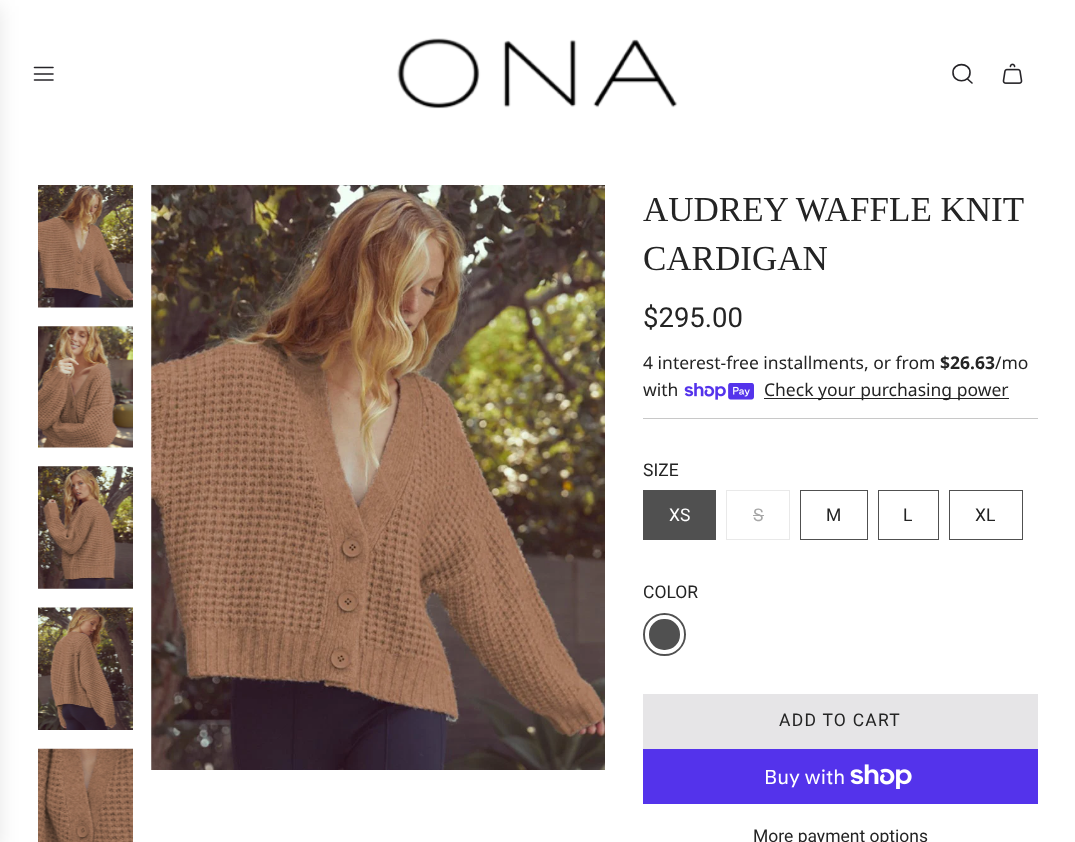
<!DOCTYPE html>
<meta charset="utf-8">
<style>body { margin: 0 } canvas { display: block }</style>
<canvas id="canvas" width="1075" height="842"></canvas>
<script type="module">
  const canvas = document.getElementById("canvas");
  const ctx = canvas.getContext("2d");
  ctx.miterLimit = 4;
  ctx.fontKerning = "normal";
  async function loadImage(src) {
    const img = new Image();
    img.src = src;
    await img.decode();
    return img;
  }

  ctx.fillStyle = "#ffffff";
  ctx.fillRect(0, 0, 1075, 842);
  ctx.fillStyle = "rgba(0, 0, 0, 0.1)";
  ctx.filter = "blur(9.5px)";
  ctx.beginPath();
  ctx.rect(-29, 6, 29, 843);
  ctx.fill();
  ctx.filter = "none";
  ctx.beginPath();
  ctx.moveTo(34.5, 67.5);
  ctx.lineTo(53, 67.5);
  ctx.moveTo(34.5, 74);
  ctx.lineTo(53, 74);
  ctx.moveTo(34.5, 80);
  ctx.lineTo(53, 80);
  ctx.strokeStyle = "#262428";
  ctx.lineWidth = 1.6;
  ctx.lineCap = "round";
  ctx.lineJoin = "round";
  ctx.stroke();
  ctx.drawImage(await loadImage("img1.png"), 397, 38, 281, 71);
  ctx.beginPath();
  ctx.moveTo(967.5, 79);
  ctx.lineTo(972, 83);
  ctx.moveTo(953, 72.5);
  ctx.bezierCurveTo(953, 83.5, 970, 83.5, 970, 72.5);
  ctx.bezierCurveTo(970, 62, 953, 62, 953, 72.5);
  ctx.closePath();
  ctx.stroke();
  ctx.drawImage(await loadImage("img2.png"), 1002, 63, 21, 21);
  ctx.drawImage(await loadImage("img3.png"), 38, 185, 95, 123);
  ctx.drawImage(await loadImage("img4.png"), 38, 326, 95, 122);
  ctx.drawImage(await loadImage("img5.png"), 38, 466, 95, 123);
  ctx.drawImage(await loadImage("img6.png"), 38, 607, 95, 123);
  ctx.drawImage(await loadImage("img7.png"), 38, 748, 95, 94);
  ctx.drawImage(await loadImage("img8.png"), 151, 185, 454, 585);
  ctx.font = "35px Liberation Serif";
  ctx.fillStyle = "#242424";
  ctx.fillText("AUDREY WAFFLE KNIT", 643, 221);
  ctx.fillText("CARDIGAN", 643, 270);
  ctx.font = "27.5px Roboto";
  ctx.fillText("$295.00", 643, 327);
  ctx.font = "17.5px Noto Sans";
  ctx.fillText("4 interest-free installments, or from", 643, 369);
  ctx.font = "bold 17.5px Noto Sans";
  ctx.fillText("$26.63", 940, 369);
  ctx.font = "17.5px Noto Sans";
  ctx.fillText("/mo", 995, 369);
  ctx.fillText("with", 643, 396);
  ctx.drawImage(await loadImage("img9.png"), 684, 383, 70, 17);
  ctx.fillRect(764, 398, 245, 1);
  ctx.fillText("Check your purchasing power", 764, 396);
  ctx.fillStyle = "#c8c8c8";
  ctx.fillRect(643, 418, 395, 1);
  ctx.font = "17.5px Roboto";
  ctx.fillStyle = "#242424";
  ctx.fillText("SIZE", 643, 476);
  ctx.fillStyle = "#505050";
  ctx.fillRect(643, 490, 73, 50);
  ctx.fillStyle = "#ffffff";
  ctx.fillText("XS", 669, 521);
  ctx.strokeStyle = "#e9e9e9";
  ctx.lineWidth = 1;
  ctx.lineJoin = "miter";
  ctx.strokeRect(726.5, 490.5, 63, 49);
  ctx.fillStyle = "#a7a7a7";
  ctx.fillText("S", 753, 521);
  ctx.fillRect(753, 515, 11, 1);
  ctx.strokeStyle = "#505050";
  ctx.strokeRect(800.5, 490.5, 67, 49);
  ctx.fillStyle = "#242424";
  ctx.fillText("M", 826, 521);
  ctx.strokeRect(878.5, 490.5, 60, 49);
  ctx.fillText("L", 903, 521);
  ctx.strokeRect(949.5, 490.5, 73, 49);
  ctx.fillText("XL", 975, 521);
  ctx.fillText("COLOR", 643, 598);
  ctx.fillStyle = "#505050";
  ctx.beginPath();
  ctx.arc(664.5, 634.5, 20, 0, Math.PI * 2);
  ctx.fill();
  ctx.lineWidth = 3;
  ctx.stroke();
  ctx.beginPath();
  ctx.roundRect(647, 617, 35, 35, 17);
  ctx.strokeStyle = "#ffffff";
  ctx.lineWidth = 4;
  ctx.stroke();
  ctx.fillStyle = "#e6e5e7";
  ctx.fillRect(643, 694, 395, 55);
  ctx.letterSpacing = "1.25px";
  ctx.fillStyle = "#242424";
  ctx.fillText("ADD TO CART", 779, 726);
  ctx.fillStyle = "#5433eb";
  ctx.fillRect(643, 749, 395, 55);
  ctx.letterSpacing = "0px";
  ctx.font = "20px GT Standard";
  ctx.fillStyle = "#ffffff";
  ctx.fillText("Buy with", 764, 784);
  ctx.drawImage(await loadImage("img10.png"), 850, 764, 62, 25);
  ctx.font = "17.5px Roboto";
  ctx.fillStyle = "#242424";
  ctx.fillText("More payment options", 753, 842);
</script>
